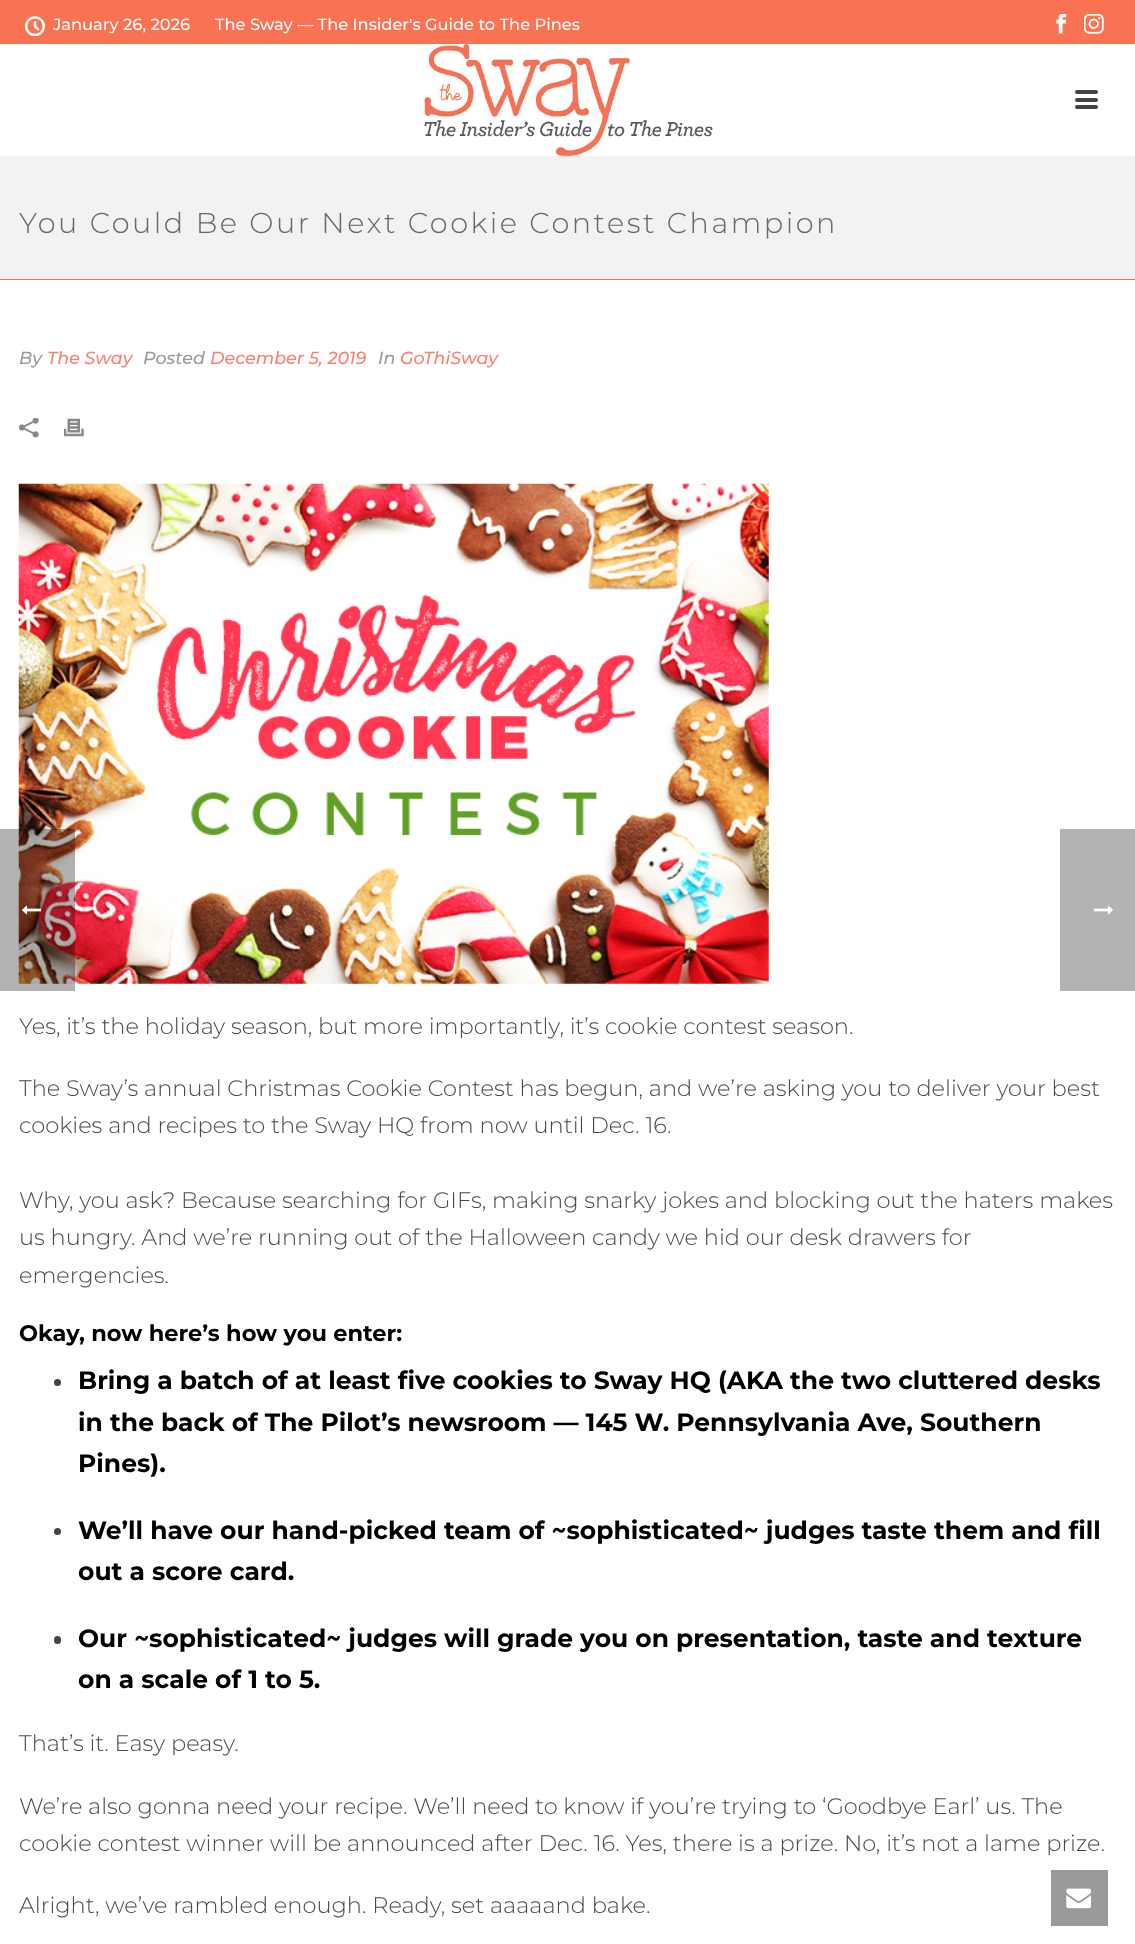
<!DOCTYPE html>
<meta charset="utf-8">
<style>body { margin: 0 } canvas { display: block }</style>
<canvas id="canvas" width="1135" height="1944"></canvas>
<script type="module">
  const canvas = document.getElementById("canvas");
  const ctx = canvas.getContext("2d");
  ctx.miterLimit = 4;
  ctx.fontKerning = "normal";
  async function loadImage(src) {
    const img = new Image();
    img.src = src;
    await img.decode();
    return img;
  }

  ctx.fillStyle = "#ffffff";
  ctx.fillRect(0, 0, 1135, 1944);
  ctx.fillStyle = "#f2f2f2";
  ctx.fillRect(0, 156, 1135, 123);
  ctx.fillStyle = "#f37255";
  ctx.fillRect(0, 279, 1135, 1);
  ctx.fillStyle = "#f97352";
  ctx.fillRect(0, 0, 1135, 44);
  ctx.drawImage(await loadImage("img1.png"), 25, 16, 20, 20);
  ctx.font = "500 16.25px Montserrat";
  ctx.fillStyle = "#ffffff";
  ctx.fillText("January 26, 2026", 53, 30);
  ctx.fillText("The Sway — The Insider's Guide to The Pines", 215, 30);
  ctx.drawImage(await loadImage("img2.png"), 1056, 14, 11, 20);
  ctx.drawImage(await loadImage("img3.png"), 1084, 14, 20, 20);
  ctx.drawImage(await loadImage("img4.png"), 424, 44, 289, 113);
  ctx.fillStyle = "#444444";
  ctx.beginPath();
  ctx.roundRect(1075, 90, 23, 4, 2);
  ctx.fill();
  ctx.beginPath();
  ctx.roundRect(1075, 98, 23, 4, 2);
  ctx.fill();
  ctx.beginPath();
  ctx.roundRect(1075, 105, 23, 4, 2);
  ctx.fill();
  ctx.letterSpacing = "2.5px";
  ctx.font = "300 28.75px Montserrat";
  ctx.fillStyle = "#666666";
  ctx.fillText("You Could Be Our Next Cookie Contest Champion", 19, 233);
  ctx.letterSpacing = "0px";
  ctx.font = "italic 500 17.5px Montserrat";
  ctx.fillStyle = "#999999";
  ctx.fillText("By", 19, 364);
  ctx.fillStyle = "#fa8072";
  ctx.fillText("The Sway", 47, 364);
  ctx.fillStyle = "#999999";
  ctx.fillText("Posted", 143, 364);
  ctx.fillStyle = "#fa8072";
  ctx.fillText("December 5, 2019", 210, 364);
  ctx.fillStyle = "#999999";
  ctx.fillText("In", 378, 364);
  ctx.fillStyle = "#fa8072";
  ctx.fillText("GoThiSway", 400, 364);
  ctx.drawImage(await loadImage("img5.png"), 19, 418, 20, 20);
  ctx.drawImage(await loadImage("img6.png"), 64, 418, 20, 19);
  ctx.drawImage(await loadImage("img7.png"), 18, 483, 751, 501);
  ctx.font = "300 22.5px Montserrat";
  ctx.fillStyle = "#494949";
  ctx.fillText("Yes, it’s the holiday season, but more importantly, it’s cookie contest season.", 19, 1034);
  ctx.fillText("The Sway’s annual Christmas Cookie Contest has begun, and we’re asking you to deliver your best", 19, 1096);
  ctx.fillText("cookies and recipes to the Sway HQ from now until Dec. 16.", 19, 1133);
  ctx.fillText("Why, you ask? Because searching for GIFs, making snarky jokes and blocking out the haters makes", 19, 1208);
  ctx.fillText("us hungry. And we’re running out of the Halloween candy we hid our desk drawers for", 19, 1245);
  ctx.fillText("emergencies.", 19, 1283);
  ctx.font = "100 22.5px Montserrat";
  ctx.fillStyle = "#000000";
  ctx.fillText("Okay, now here’s how you enter:", 19, 1341);
  ctx.fillStyle = "#444444";
  ctx.beginPath();
  ctx.arc(57.5, 1382.5, 3.5, 0, Math.PI * 2);
  ctx.fill();
  ctx.font = "100 25px Montserrat";
  ctx.fillStyle = "#000000";
  ctx.fillText("Bring a batch of at least five cookies to Sway HQ (AKA the two cluttered desks", 78, 1389);
  ctx.fillText("in the back of The Pilot’s newsroom — 145 W. Pennsylvania Ave, Southern", 78, 1431);
  ctx.fillText("Pines).", 78, 1472);
  ctx.fillStyle = "#444444";
  ctx.beginPath();
  ctx.arc(57.5, 1531.5, 3.5, 0, Math.PI * 2);
  ctx.fill();
  ctx.fillStyle = "#000000";
  ctx.fillText("We’ll have our hand-picked team of ~sophisticated~ judges taste them and fill", 78, 1539);
  ctx.fillText("out a score card.", 78, 1580);
  ctx.fillStyle = "#444444";
  ctx.beginPath();
  ctx.roundRect(54, 1636, 7, 8, 3.5);
  ctx.fill();
  ctx.fillStyle = "#000000";
  ctx.fillText("Our ~sophisticated~ judges will grade you on presentation, taste and texture", 78, 1647);
  ctx.fillText("on a scale of 1 to 5.", 78, 1688);
  ctx.font = "300 22.5px Montserrat";
  ctx.fillStyle = "#494949";
  ctx.fillText("That’s it. Easy peasy.", 19, 1751);
  ctx.fillText("We’re also gonna need your recipe. We’ll need to know if you’re trying to ‘Goodbye Earl’ us. The", 19, 1814);
  ctx.fillText("cookie contest winner will be announced after Dec. 16. Yes, there is a prize. No, it’s not a lame prize.", 19, 1851);
  ctx.fillText("Alright, we’ve rambled enough. Ready, set aaaaand bake.", 19, 1913);
  ctx.fillStyle = "rgba(0, 0, 0, 0.3)";
  ctx.fillRect(0, 829, 75, 162);
  ctx.drawImage(await loadImage("img8.png"), 22, 905, 19, 10);
  ctx.fillStyle = "#b3b3b3";
  ctx.fillRect(1060, 829, 75, 162);
  ctx.drawImage(await loadImage("img9.png"), 1094, 905, 19, 10);
  ctx.fillStyle = "#999999";
  ctx.fillRect(1051, 1870, 57, 56);
  ctx.drawImage(await loadImage("img10.png"), 1066, 1888, 25, 21);
</script>
